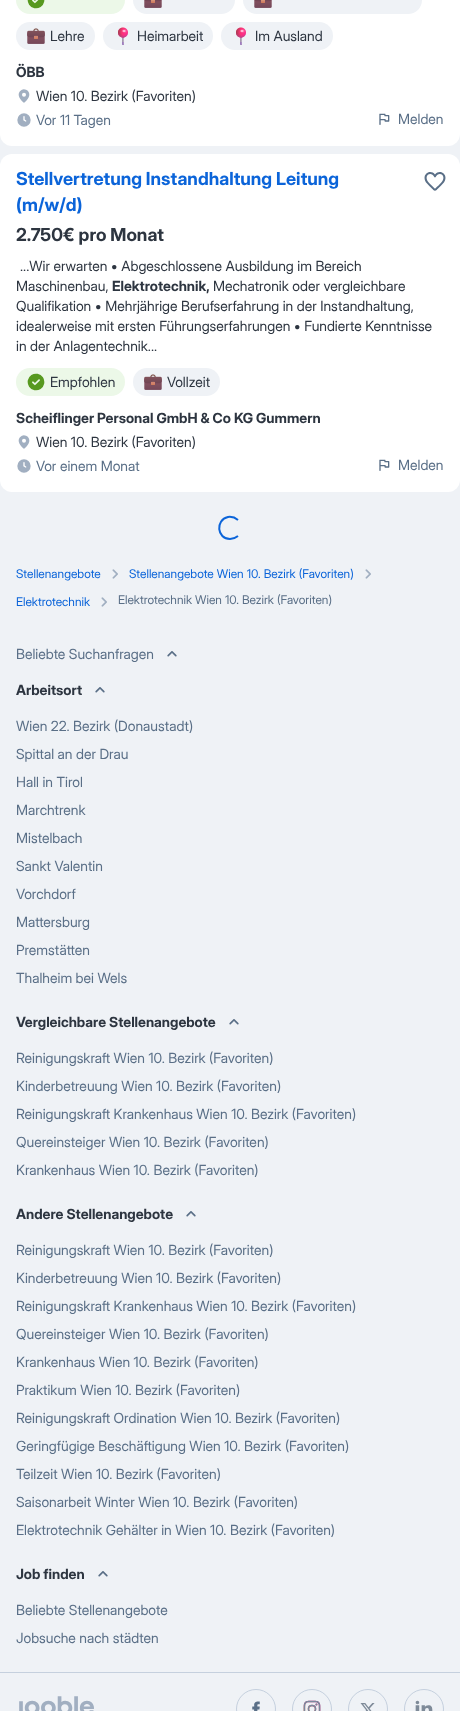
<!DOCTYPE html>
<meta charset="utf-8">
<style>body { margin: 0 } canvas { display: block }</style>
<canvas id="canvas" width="460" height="1711"></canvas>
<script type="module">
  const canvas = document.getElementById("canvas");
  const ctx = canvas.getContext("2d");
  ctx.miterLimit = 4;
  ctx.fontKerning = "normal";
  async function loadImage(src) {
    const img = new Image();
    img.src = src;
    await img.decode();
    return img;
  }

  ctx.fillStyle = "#eff2f6";
  ctx.fillRect(0, 0, 460, 1711);
  ctx.fillStyle = "#ffffff";
  ctx.beginPath();
  ctx.roundRect(0, -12, 460, 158, 12);
  ctx.fill();
  ctx.fillStyle = "#ecf8e8";
  ctx.beginPath();
  ctx.roundRect(16, -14, 109, 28, 14);
  ctx.fill();
  ctx.drawImage(await loadImage("img1.png"), 27, 0, 18, 9);
  ctx.fillStyle = "#eff2f6";
  ctx.beginPath();
  ctx.roundRect(133, -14, 102, 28, 14);
  ctx.fill();
  ctx.drawImage(await loadImage("img2.png"), 144, 0, 18, 8);
  ctx.beginPath();
  ctx.roundRect(243, -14, 179, 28, 14);
  ctx.fill();
  ctx.drawImage(await loadImage("img2.png"), 254, 0, 18, 8);
  ctx.beginPath();
  ctx.roundRect(16, 22, 79, 28, 14);
  ctx.fill();
  ctx.drawImage(await loadImage("img3.png"), 27, 28, 18, 16);
  ctx.font = "14px Inter Display";
  ctx.fillStyle = "#2d3540";
  ctx.fillText("Lehre", 50, 41);
  ctx.fillStyle = "#eff2f6";
  ctx.beginPath();
  ctx.roundRect(103, 22, 110, 28, 14);
  ctx.fill();
  ctx.drawImage(await loadImage("img4.png"), 118, 27, 10, 18);
  ctx.fillStyle = "#2d3540";
  ctx.fillText("Heimarbeit", 137, 41);
  ctx.fillStyle = "#eff2f6";
  ctx.beginPath();
  ctx.roundRect(221, 22, 112, 28, 14);
  ctx.fill();
  ctx.drawImage(await loadImage("img4.png"), 236, 27, 10, 18);
  ctx.fillStyle = "#2d3540";
  ctx.fillText("Im Ausland", 255, 41);
  ctx.font = "bold 14px Inter Display";
  ctx.fillText("ÖBB", 16, 77);
  ctx.drawImage(await loadImage("img5.png"), 18, 89, 12, 14);
  ctx.font = "14px Inter Display";
  ctx.fillText("Wien 10. Bezirk (Favoriten)", 36, 101);
  ctx.drawImage(await loadImage("img6.png"), 17, 113, 14, 14);
  ctx.fillStyle = "#5a6f87";
  ctx.fillText("Vor 11 Tagen", 36, 125);
  ctx.drawImage(await loadImage("img7.png"), 379, 113, 11, 12);
  ctx.fillText("Melden", 398, 124);
  ctx.fillStyle = "#ffffff";
  ctx.beginPath();
  ctx.roundRect(0, 154, 460, 338, 12);
  ctx.fill();
  ctx.font = "bold 18px Inter Display";
  ctx.fillStyle = "#0b64d9";
  ctx.fillText("Stellvertretung Instandhaltung Leitung", 16, 185);
  ctx.fillText("(m/w/d)", 16, 211);
  ctx.drawImage(await loadImage("img8.png"), 424, 172, 22, 19);
  ctx.fillStyle = "#2d3540";
  ctx.fillText("2.750€ pro Monat", 16, 241);
  ctx.font = "14px Inter Display";
  ctx.fillText("...Wir erwarten • Abgeschlossene Ausbildung im Bereich", 20, 271);
  ctx.fillText("Maschinenbau,", 16, 291);
  ctx.font = "bold 14px Inter Display";
  ctx.fillText("Elektrotechnik,", 112, 291);
  ctx.font = "14px Inter Display";
  ctx.fillText("Mechatronik oder vergleichbare", 213, 291);
  ctx.fillText("Qualifikation • Mehrjährige Berufserfahrung in der Instandhaltung,", 16, 311);
  ctx.fillText("idealerweise mit ersten Führungserfahrungen • Fundierte Kenntnisse", 16, 331);
  ctx.fillText("in der Anlagentechnik...", 16, 351);
  ctx.fillStyle = "#ecf8e8";
  ctx.beginPath();
  ctx.roundRect(16, 368, 109, 28, 14);
  ctx.fill();
  ctx.drawImage(await loadImage("img9.png"), 27, 373, 18, 18);
  ctx.fillStyle = "#2d3540";
  ctx.fillText("Empfohlen", 50, 387);
  ctx.fillStyle = "#eff2f6";
  ctx.beginPath();
  ctx.roundRect(133, 368, 87, 28, 14);
  ctx.fill();
  ctx.drawImage(await loadImage("img3.png"), 144, 374, 18, 16);
  ctx.fillStyle = "#2d3540";
  ctx.fillText("Vollzeit", 167, 387);
  ctx.font = "bold 14px Inter Display";
  ctx.fillText("Scheiflinger Personal GmbH & Co KG Gummern", 16, 423);
  ctx.drawImage(await loadImage("img5.png"), 18, 435, 12, 14);
  ctx.font = "14px Inter Display";
  ctx.fillText("Wien 10. Bezirk (Favoriten)", 36, 447);
  ctx.drawImage(await loadImage("img6.png"), 17, 459, 14, 14);
  ctx.fillStyle = "#5a6f87";
  ctx.fillText("Vor einem Monat", 36, 471);
  ctx.drawImage(await loadImage("img7.png"), 379, 459, 11, 12);
  ctx.fillText("Melden", 398, 470);
  ctx.beginPath();
  ctx.moveTo(238, 536);
  ctx.bezierCurveTo(235.5, 538, 233, 539, 230, 539);
  ctx.bezierCurveTo(217, 539, 215, 520, 228, 517);
  ctx.bezierCurveTo(231.5, 516.5, 235, 517.5, 238, 520);
  ctx.strokeStyle = "#0b64d9";
  ctx.lineWidth = 2;
  ctx.stroke();
  ctx.font = "12px Inter Display";
  ctx.fillStyle = "#0b64d9";
  ctx.fillText("Stellenangebote", 16, 578);
  ctx.drawImage(await loadImage("img10.png"), 112, 569, 6, 10);
  ctx.fillText("Stellenangebote Wien 10. Bezirk (Favoriten)", 129, 578);
  ctx.drawImage(await loadImage("img10.png"), 365, 569, 6, 10);
  ctx.fillText("Elektrotechnik", 16, 606);
  ctx.drawImage(await loadImage("img10.png"), 101, 597, 6, 10);
  ctx.fillStyle = "#5a6f87";
  ctx.fillText("Elektrotechnik Wien 10. Bezirk (Favoriten)", 118, 604);
  ctx.font = "14px Inter Display";
  ctx.fillText("Beliebte Suchanfragen", 16, 659);
  ctx.drawImage(await loadImage("img11.png"), 167, 651, 10, 6);
  ctx.font = "bold 14px Inter Display";
  ctx.fillStyle = "#2d3540";
  ctx.fillText("Arbeitsort", 16, 695);
  ctx.drawImage(await loadImage("img11.png"), 95, 687, 10, 6);
  ctx.font = "14px Inter Display";
  ctx.fillStyle = "#5a6f87";
  ctx.fillText("Wien 22. Bezirk (Donaustadt)", 16, 731);
  ctx.fillText("Spittal an der Drau", 16, 759);
  ctx.fillText("Hall in Tirol", 16, 787);
  ctx.fillText("Marchtrenk", 16, 815);
  ctx.fillText("Mistelbach", 16, 843);
  ctx.fillText("Sankt Valentin", 16, 871);
  ctx.fillText("Vorchdorf", 16, 899);
  ctx.fillText("Mattersburg", 16, 927);
  ctx.fillText("Premstätten", 16, 955);
  ctx.fillText("Thalheim bei Wels", 16, 983);
  ctx.font = "bold 14px Inter Display";
  ctx.fillStyle = "#2d3540";
  ctx.fillText("Vergleichbare Stellenangebote", 16, 1027);
  ctx.drawImage(await loadImage("img11.png"), 229, 1019, 10, 6);
  ctx.font = "14px Inter Display";
  ctx.fillStyle = "#5a6f87";
  ctx.fillText("Reinigungskraft Wien 10. Bezirk (Favoriten)", 16, 1063);
  ctx.fillText("Kinderbetreuung Wien 10. Bezirk (Favoriten)", 16, 1091);
  ctx.fillText("Reinigungskraft Krankenhaus Wien 10. Bezirk (Favoriten)", 16, 1119);
  ctx.fillText("Quereinsteiger Wien 10. Bezirk (Favoriten)", 16, 1147);
  ctx.fillText("Krankenhaus Wien 10. Bezirk (Favoriten)", 16, 1175);
  ctx.font = "bold 14px Inter Display";
  ctx.fillStyle = "#2d3540";
  ctx.fillText("Andere Stellenangebote", 16, 1219);
  ctx.drawImage(await loadImage("img11.png"), 186, 1211, 10, 6);
  ctx.font = "14px Inter Display";
  ctx.fillStyle = "#5a6f87";
  ctx.fillText("Reinigungskraft Wien 10. Bezirk (Favoriten)", 16, 1255);
  ctx.fillText("Kinderbetreuung Wien 10. Bezirk (Favoriten)", 16, 1283);
  ctx.fillText("Reinigungskraft Krankenhaus Wien 10. Bezirk (Favoriten)", 16, 1311);
  ctx.fillText("Quereinsteiger Wien 10. Bezirk (Favoriten)", 16, 1339);
  ctx.fillText("Krankenhaus Wien 10. Bezirk (Favoriten)", 16, 1367);
  ctx.fillText("Praktikum Wien 10. Bezirk (Favoriten)", 16, 1395);
  ctx.fillText("Reinigungskraft Ordination Wien 10. Bezirk (Favoriten)", 16, 1423);
  ctx.fillText("Geringfügige Beschäftigung Wien 10. Bezirk (Favoriten)", 16, 1451);
  ctx.fillText("Teilzeit Wien 10. Bezirk (Favoriten)", 16, 1479);
  ctx.fillText("Saisonarbeit Winter Wien 10. Bezirk (Favoriten)", 16, 1507);
  ctx.fillText("Elektrotechnik Gehälter in Wien 10. Bezirk (Favoriten)", 16, 1535);
  ctx.font = "bold 14px Inter Display";
  ctx.fillStyle = "#2d3540";
  ctx.fillText("Job finden", 16, 1579);
  ctx.drawImage(await loadImage("img11.png"), 98, 1571, 10, 6);
  ctx.font = "14px Inter Display";
  ctx.fillStyle = "#5a6f87";
  ctx.fillText("Beliebte Stellenangebote", 16, 1615);
  ctx.fillText("Jobsuche nach städten", 16, 1643);
  ctx.fillStyle = "#c5d0de";
  ctx.fillRect(0, 1672, 460, 1);
  ctx.drawImage(await loadImage("img12.png"), 19, 1696, 75, 15);
  ctx.beginPath();
  ctx.arc(256, 1709, 19.5, 0, Math.PI * 2);
  ctx.strokeStyle = "#c5d0de";
  ctx.lineWidth = 1;
  ctx.stroke();
  ctx.drawImage(await loadImage("img13.png"), 252, 1701, 8, 10);
  ctx.beginPath();
  ctx.arc(312, 1709, 19.5, 0, Math.PI * 2);
  ctx.stroke();
  ctx.drawImage(await loadImage("img14.png"), 303, 1700, 18, 11);
  ctx.beginPath();
  ctx.arc(368, 1709, 19.5, 0, Math.PI * 2);
  ctx.stroke();
  ctx.drawImage(await loadImage("img15.png"), 360, 1703, 15, 8);
  ctx.beginPath();
  ctx.arc(424, 1709, 19.5, 0, Math.PI * 2);
  ctx.stroke();
  ctx.drawImage(await loadImage("img16.png"), 415, 1700, 18, 11);
</script>
